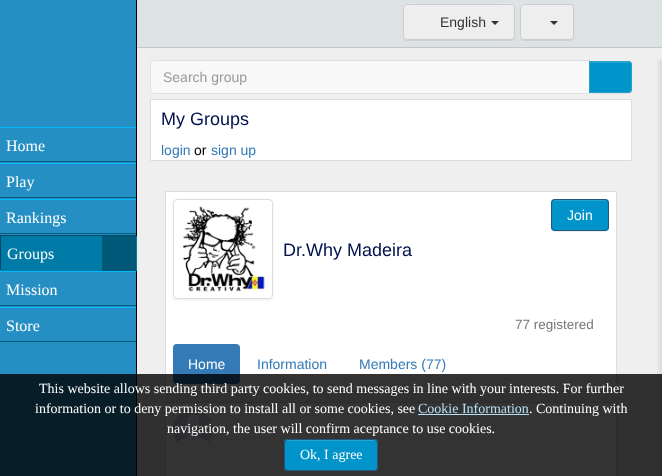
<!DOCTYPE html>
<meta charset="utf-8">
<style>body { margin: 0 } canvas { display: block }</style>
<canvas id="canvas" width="662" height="476"></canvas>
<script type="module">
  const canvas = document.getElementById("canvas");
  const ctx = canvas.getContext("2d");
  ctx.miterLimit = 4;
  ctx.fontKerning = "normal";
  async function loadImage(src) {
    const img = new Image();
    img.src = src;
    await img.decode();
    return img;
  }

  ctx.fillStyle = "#efefef";
  ctx.fillRect(0, 0, 662, 476);
  ctx.fillStyle = "#dde2e5";
  ctx.fillRect(137, 0, 525, 47);
  ctx.fillStyle = "#c6c6c6";
  ctx.fillRect(137, 47, 525, 1);
  ctx.fillStyle = "rgba(0, 0, 0, 0.07)";
  ctx.filter = "blur(0.5px)";
  ctx.beginPath();
  ctx.roundRect(403, 5, 112, 36, 4);
  ctx.fill();
  ctx.filter = "none";
  ctx.fillStyle = "#eeeeee";
  ctx.beginPath();
  ctx.roundRect(403, 4, 112, 36, 4);
  ctx.fill();
  ctx.fillStyle = "#f1f1f1";
  ctx.beginPath();
  ctx.moveTo(407, 6);
  ctx.lineTo(511, 6);
  ctx.bezierCurveTo(513, 6, 514, 7, 514, 9);
  ctx.bezierCurveTo(514, 0, 496, 5, 494, 5);
  ctx.lineTo(424, 5);
  ctx.bezierCurveTo(422, 5, 404, 0, 404, 9);
  ctx.bezierCurveTo(404, 7, 405, 6, 407, 6);
  ctx.closePath();
  ctx.fill();
  ctx.beginPath();
  ctx.roundRect(403.5, 4.5, 111, 35, 3.5);
  ctx.strokeStyle = "#cccccc";
  ctx.stroke();
  ctx.font = "14px Liberation Sans";
  ctx.fillStyle = "#333333";
  ctx.fillText("English", 440, 27);
  ctx.beginPath();
  ctx.moveTo(491, 21);
  ctx.lineTo(499, 21);
  ctx.lineTo(495, 25);
  ctx.closePath();
  ctx.fill();
  ctx.fillStyle = "rgba(0, 0, 0, 0.07)";
  ctx.filter = "blur(0.5px)";
  ctx.beginPath();
  ctx.roundRect(520, 5, 54, 36, 4);
  ctx.fill();
  ctx.filter = "none";
  ctx.fillStyle = "#eeeeee";
  ctx.beginPath();
  ctx.roundRect(520, 4, 54, 36, 4);
  ctx.fill();
  ctx.fillStyle = "#f1f1f1";
  ctx.beginPath();
  ctx.moveTo(524, 6);
  ctx.lineTo(570, 6);
  ctx.bezierCurveTo(572, 6, 573, 7, 573, 9);
  ctx.bezierCurveTo(573, 3, 567, 5, 562, 5);
  ctx.lineTo(532, 5);
  ctx.bezierCurveTo(527, 5, 521, 3, 521, 9);
  ctx.bezierCurveTo(521, 7, 522, 6, 524, 6);
  ctx.closePath();
  ctx.fill();
  ctx.beginPath();
  ctx.roundRect(520.5, 4.5, 53, 35, 3.5);
  ctx.stroke();
  ctx.fillStyle = "#333333";
  ctx.beginPath();
  ctx.moveTo(550, 21);
  ctx.lineTo(558, 21);
  ctx.lineTo(554, 25);
  ctx.closePath();
  ctx.fill();
  ctx.fillStyle = "#258fc3";
  ctx.fillRect(0, 0, 136, 476);
  ctx.fillStyle = "#000000";
  ctx.fillRect(136, 0, 1, 476);
  ctx.fillStyle = "#00b7f9";
  ctx.fillRect(0, 127, 136, 1);
  ctx.fillStyle = "#015b7d";
  ctx.fillRect(0, 161, 136, 1);
  ctx.font = "16px Liberation Serif";
  ctx.fillStyle = "#ffffff";
  ctx.fillText("Home", 6, 151);
  ctx.fillStyle = "#00b7f9";
  ctx.fillRect(0, 163, 136, 1);
  ctx.fillStyle = "#015b7d";
  ctx.fillRect(0, 197, 136, 1);
  ctx.fillStyle = "#ffffff";
  ctx.fillText("Play", 6, 187);
  ctx.fillStyle = "#00b7f9";
  ctx.fillRect(0, 199, 136, 1);
  ctx.fillStyle = "#015b7d";
  ctx.fillRect(0, 233, 136, 1);
  ctx.fillStyle = "#ffffff";
  ctx.fillText("Rankings", 6, 223);
  ctx.strokeStyle = "#034963";
  ctx.strokeRect(0.5, 235.5, 135, 34);
  ctx.fillStyle = "#007ba7";
  ctx.fillRect(1, 236, 136, 35);
  ctx.fillStyle = "#ffffff";
  ctx.fillText("Groups", 7, 259);
  ctx.fillStyle = "#005878";
  ctx.fillRect(102, 236, 34, 35);
  ctx.fillStyle = "#00b7f9";
  ctx.fillRect(0, 271, 136, 1);
  ctx.fillStyle = "#015b7d";
  ctx.fillRect(0, 305, 136, 1);
  ctx.fillStyle = "#ffffff";
  ctx.fillText("Mission", 6, 295);
  ctx.fillStyle = "#00b7f9";
  ctx.fillRect(0, 307, 136, 1);
  ctx.fillStyle = "#015b7d";
  ctx.fillRect(0, 341, 136, 1);
  ctx.fillStyle = "#ffffff";
  ctx.fillText("Store", 6, 331);
  ctx.fillStyle = "#f8f8f8";
  ctx.beginPath();
  ctx.roundRect(150.5, 60.5, 439, 33, [3.5, 0, 0, 3.5]);
  ctx.fill();
  ctx.strokeStyle = "#dde2e5";
  ctx.stroke();
  ctx.font = "14px Liberation Sans";
  ctx.fillStyle = "#999999";
  ctx.fillText("Search group", 163, 82);
  ctx.fillStyle = "rgba(0, 0, 0, 0.07)";
  ctx.filter = "blur(0.5px)";
  ctx.beginPath();
  ctx.roundRect(589, 62, 43, 32, 4);
  ctx.fill();
  ctx.filter = "none";
  ctx.fillStyle = "#0094ca";
  ctx.beginPath();
  ctx.roundRect(589, 61, 43, 32, [0, 4, 4, 0]);
  ctx.fill();
  ctx.fillStyle = "#26a4d2";
  ctx.beginPath();
  ctx.moveTo(590, 63);
  ctx.lineTo(628, 63);
  ctx.bezierCurveTo(630, 63, 631, 64, 631, 66);
  ctx.lineTo(631, 65);
  ctx.bezierCurveTo(631, 63, 630, 62, 628, 62);
  ctx.lineTo(590, 62);
  ctx.closePath();
  ctx.fill();
  ctx.beginPath();
  ctx.roundRect(589.5, 61.5, 42, 31, [0, 3.5, 3.5, 0]);
  ctx.strokeStyle = "#28a4c9";
  ctx.stroke();
  ctx.fillStyle = "#ffffff";
  ctx.beginPath();
  ctx.rect(150.5, 99.5, 481, 61);
  ctx.fill();
  ctx.strokeStyle = "#dddddd";
  ctx.stroke();
  ctx.font = "18px Liberation Sans";
  ctx.fillStyle = "#01114d";
  ctx.fillText("My Groups", 161, 125);
  ctx.font = "14px Liberation Sans";
  ctx.fillStyle = "#337ab7";
  ctx.fillText("login", 161, 155);
  ctx.fillStyle = "#000000";
  ctx.fillText("or", 194, 155);
  ctx.fillStyle = "#337ab7";
  ctx.fillText("sign up", 211, 155);
  ctx.fillStyle = "#ffffff";
  ctx.beginPath();
  ctx.rect(165.5, 191.5, 451, 200);
  ctx.fill();
  ctx.stroke();
  ctx.fillStyle = "rgba(0, 0, 0, 0.07)";
  ctx.filter = "blur(1px)";
  ctx.beginPath();
  ctx.roundRect(173, 200, 100, 100, 4);
  ctx.fill();
  ctx.filter = "none";
  ctx.fillStyle = "#ffffff";
  ctx.beginPath();
  ctx.roundRect(173.5, 199.5, 99, 99, 3.5);
  ctx.fill();
  ctx.stroke();
  ctx.drawImage(await loadImage("img1.png"), 182, 206, 83, 86);
  ctx.fillStyle = "rgba(0, 0, 0, 0.07)";
  ctx.filter = "blur(0.5px)";
  ctx.beginPath();
  ctx.roundRect(551, 200, 58, 32, 4);
  ctx.fill();
  ctx.filter = "none";
  ctx.fillStyle = "#0094ca";
  ctx.beginPath();
  ctx.roundRect(551, 199, 58, 32, 4);
  ctx.fill();
  ctx.fillStyle = "#26a4d2";
  ctx.beginPath();
  ctx.moveTo(555, 201);
  ctx.lineTo(605, 201);
  ctx.bezierCurveTo(607, 201, 608, 202, 608, 204);
  ctx.bezierCurveTo(608, 198, 601, 200, 597, 200);
  ctx.lineTo(563, 200);
  ctx.bezierCurveTo(559, 200, 552, 198, 552, 204);
  ctx.bezierCurveTo(552, 202, 553, 201, 555, 201);
  ctx.closePath();
  ctx.fill();
  ctx.beginPath();
  ctx.roundRect(551.5, 199.5, 57, 31, 3.5);
  ctx.strokeStyle = "#245580";
  ctx.stroke();
  ctx.fillStyle = "#ffffff";
  ctx.fillText("Join", 567, 220);
  ctx.font = "18px Liberation Sans";
  ctx.fillStyle = "#01114d";
  ctx.fillText("Dr.Why Madeira", 283, 256);
  ctx.font = "13.5px Liberation Sans";
  ctx.fillStyle = "#777777";
  ctx.fillText("77 registered", 515, 329);
  ctx.fillStyle = "#337ab7";
  ctx.beginPath();
  ctx.roundRect(173, 344, 67, 40, 4);
  ctx.fill();
  ctx.font = "14px Liberation Sans";
  ctx.fillStyle = "#ffffff";
  ctx.fillText("Home", 188, 369);
  ctx.fillStyle = "#337ab7";
  ctx.fillText("Information", 257, 369);
  ctx.fillText("Members (77)", 359, 369);
  ctx.fillStyle = "#ffffff";
  ctx.beginPath();
  ctx.rect(165.5, 402.5, 451, 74);
  ctx.fill();
  ctx.strokeStyle = "#dddddd";
  ctx.stroke();
  ctx.drawImage(await loadImage("img2.png"), 173, 410, 40, 32);
  ctx.fillStyle = "rgba(208, 206, 206, 0.5)";
  ctx.filter = "blur(1px)";
  ctx.beginPath();
  ctx.roundRect(658, 59, 2, 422, 2);
  ctx.fill();
  ctx.filter = "none";
  ctx.fillStyle = "#dddddd";
  ctx.beginPath();
  ctx.moveTo(662, 60);
  ctx.lineTo(662, 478);
  ctx.lineTo(660, 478);
  ctx.lineTo(660, 62);
  ctx.bezierCurveTo(660, 61, 661, 60, 662, 60);
  ctx.closePath();
  ctx.fill();
  ctx.fillStyle = "rgba(0, 0, 0, 0.8)";
  ctx.fillRect(0, 374, 662, 102);
  ctx.font = "14px Liberation Serif";
  ctx.fillStyle = "#ffffff";
  ctx.fillText("This website allows sending third party cookies, to send messages in line with your interests. For further", 39, 393);
  ctx.fillText("information or to deny permission to install all or some cookies, see", 35, 413);
  ctx.fillStyle = "#b8e1f6";
  ctx.fillText("Cookie Information", 418, 413);
  ctx.fillRect(418, 414, 111, 1);
  ctx.fillStyle = "#ffffff";
  ctx.fillText(". Continuing with", 529, 413);
  ctx.fillText("navigation, the user will confirm aceptance to use cookies.", 167, 433);
  ctx.fillStyle = "#0094ca";
  ctx.beginPath();
  ctx.roundRect(284, 439, 94, 32, 4);
  ctx.fill();
  ctx.fillStyle = "#26a4d2";
  ctx.beginPath();
  ctx.moveTo(288, 441);
  ctx.lineTo(374, 441);
  ctx.bezierCurveTo(376, 441, 377, 442, 377, 444);
  ctx.bezierCurveTo(377, 436, 363, 440, 360, 440);
  ctx.lineTo(302, 440);
  ctx.bezierCurveTo(299, 440, 285, 436, 285, 444);
  ctx.bezierCurveTo(285, 442, 286, 441, 288, 441);
  ctx.closePath();
  ctx.fill();
  ctx.beginPath();
  ctx.roundRect(284.5, 439.5, 93, 31, 3.5);
  ctx.strokeStyle = "#245580";
  ctx.stroke();
  ctx.fillStyle = "#ffffff";
  ctx.fillText("Ok, I agree", 300, 459);
</script>
